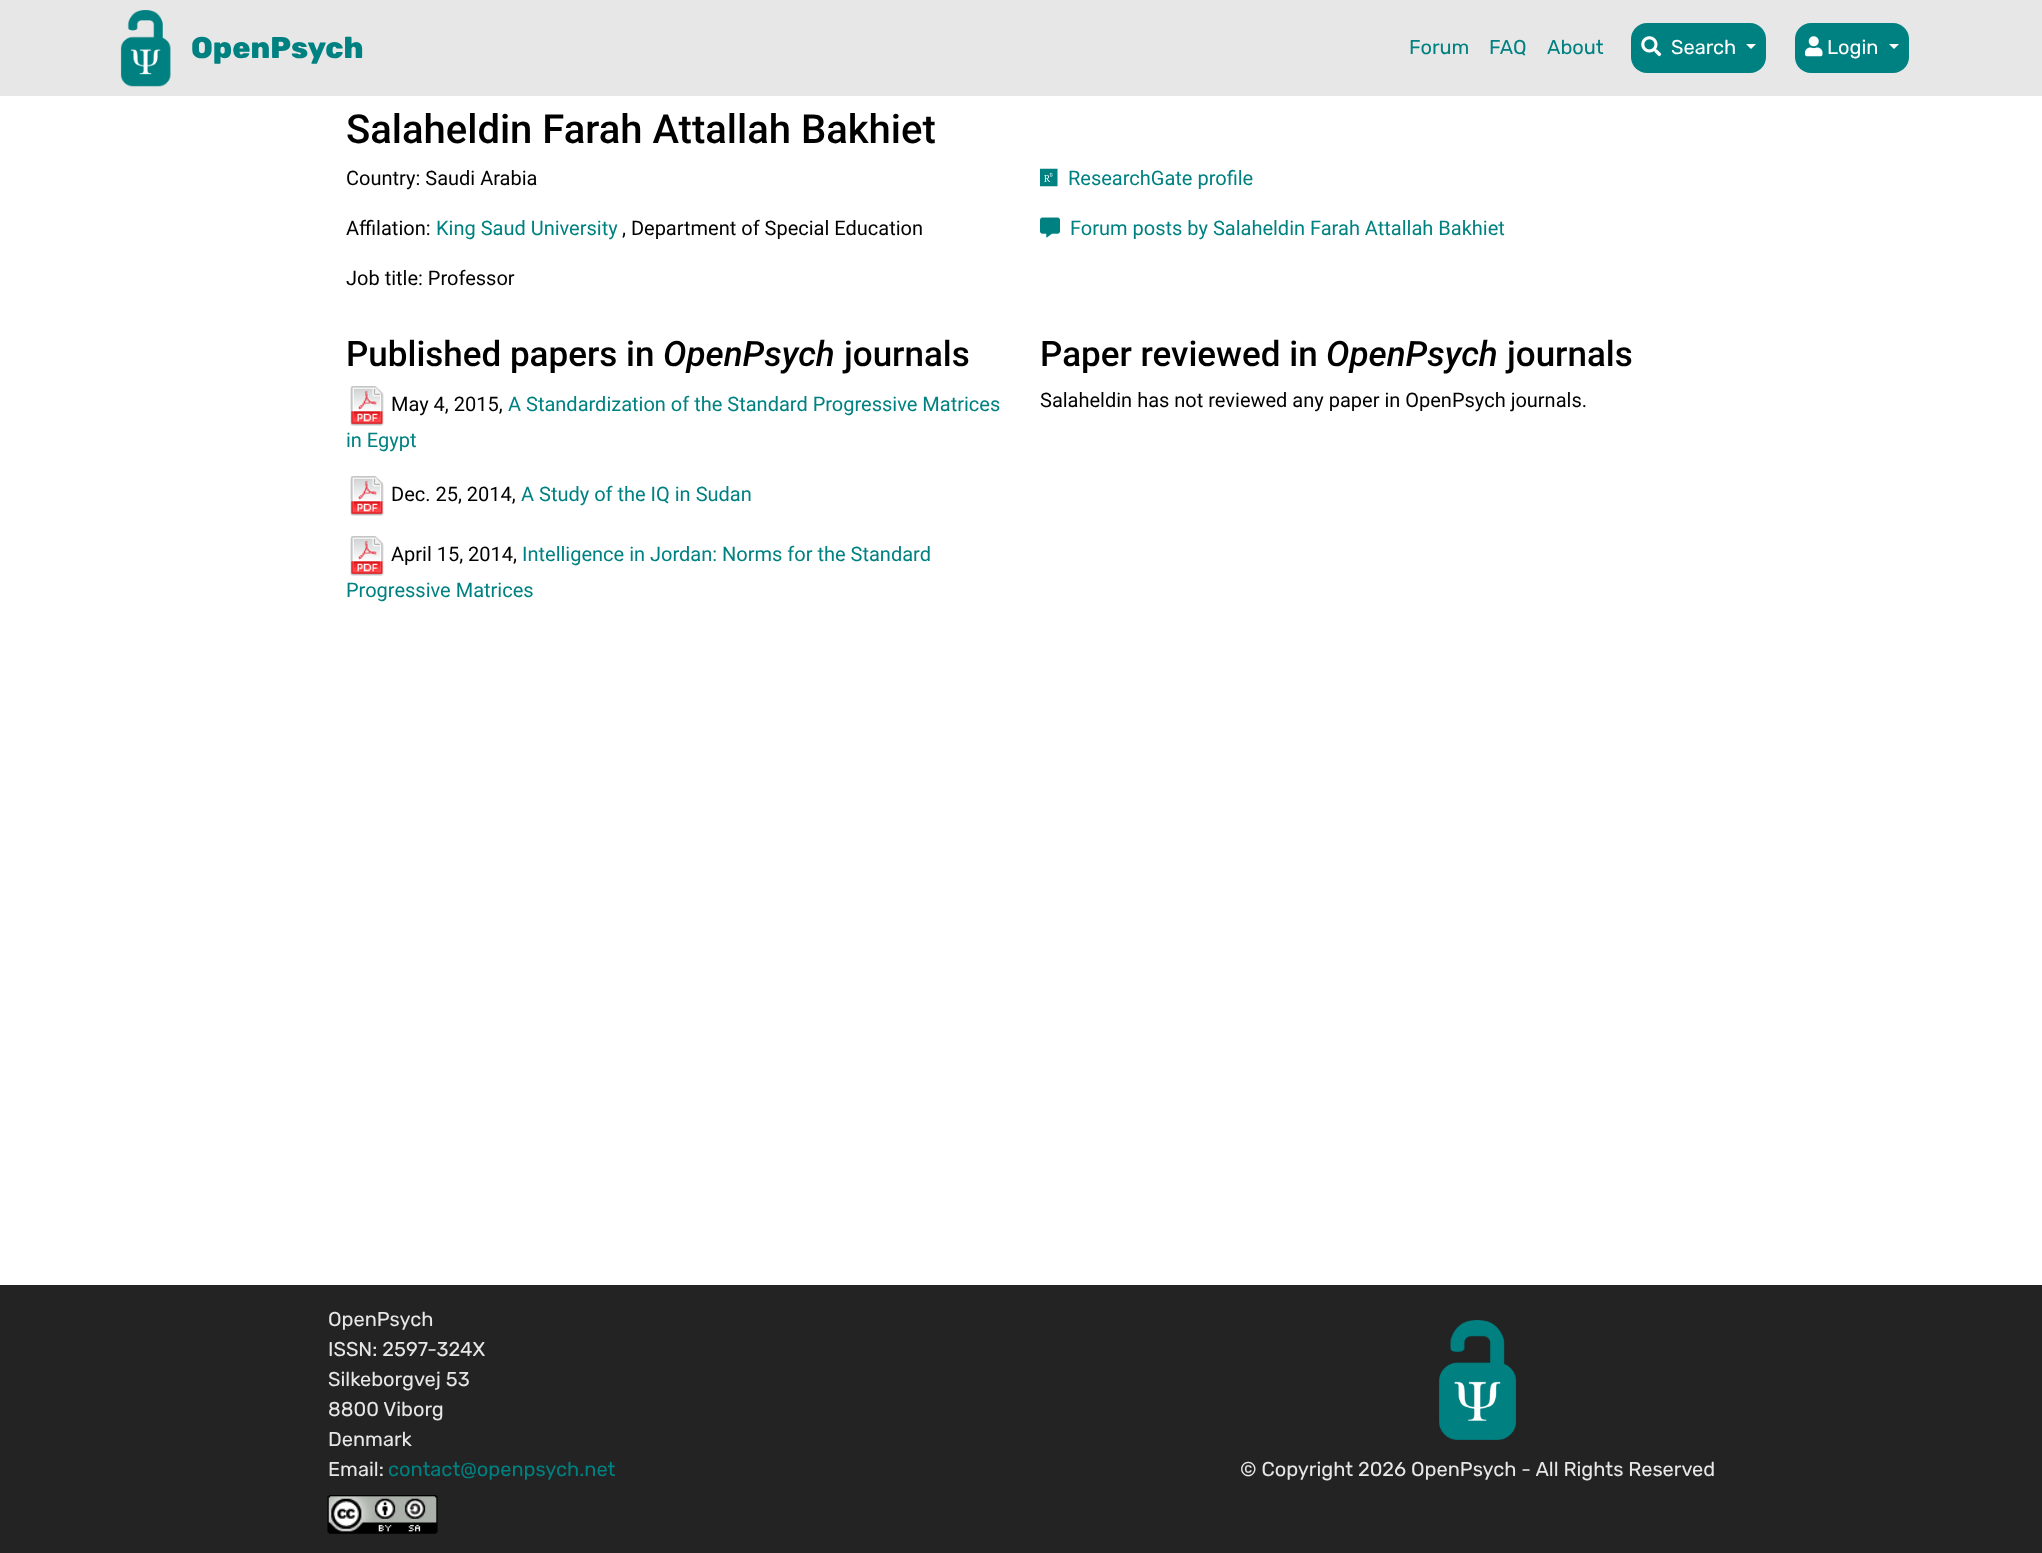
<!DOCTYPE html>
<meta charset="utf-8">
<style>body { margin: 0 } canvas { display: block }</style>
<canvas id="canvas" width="2042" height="1553"></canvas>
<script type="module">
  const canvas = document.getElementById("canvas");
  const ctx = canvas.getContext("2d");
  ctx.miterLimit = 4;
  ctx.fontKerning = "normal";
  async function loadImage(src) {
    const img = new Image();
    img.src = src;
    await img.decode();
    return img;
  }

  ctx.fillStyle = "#ffffff";
  ctx.fillRect(0, 0, 2042, 1553);
  ctx.fillStyle = "#e7e7e7";
  ctx.fillRect(0, 0, 2042, 96);
  ctx.drawImage(await loadImage("img1.png"), 120, 10, 51, 77);
  ctx.font = "800 30px Rubik";
  ctx.fillStyle = "#008181";
  ctx.fillText("OpenPsych", 191, 58);
  ctx.font = "20px Rubik";
  ctx.fillText("Forum", 1409, 54);
  ctx.fillText("FAQ", 1489, 54);
  ctx.fillText("About", 1547, 54);
  ctx.beginPath();
  ctx.roundRect(1631, 23, 135, 50, 16);
  ctx.fill();
  ctx.drawImage(await loadImage("img2.png"), 1641, 36, 21, 21);
  ctx.fillStyle = "#ffffff";
  ctx.fillText("Search", 1671, 54);
  ctx.beginPath();
  ctx.moveTo(1746, 44);
  ctx.lineTo(1756, 44);
  ctx.lineTo(1751, 49);
  ctx.closePath();
  ctx.fill();
  ctx.fillStyle = "#008181";
  ctx.beginPath();
  ctx.roundRect(1795, 23, 114, 50, 16);
  ctx.fill();
  ctx.drawImage(await loadImage("img3.png"), 1805, 36, 18, 21);
  ctx.fillStyle = "#ffffff";
  ctx.fillText("Login", 1827, 54);
  ctx.beginPath();
  ctx.moveTo(1889, 44);
  ctx.lineTo(1899, 44);
  ctx.lineTo(1894, 49);
  ctx.closePath();
  ctx.fill();
  ctx.font = "500 40px Roboto";
  ctx.fillStyle = "#000000";
  ctx.fillText("Salaheldin Farah Attallah Bakhiet", 346, 143);
  ctx.font = "20px Roboto";
  ctx.fillText("Country: Saudi Arabia", 346, 185);
  ctx.fillText("Affilation:", 346, 235);
  ctx.fillStyle = "#008181";
  ctx.fillText("King Saud University", 436, 235);
  ctx.fillStyle = "#000000";
  ctx.fillText(", Department of Special Education", 622, 235);
  ctx.fillText("Job title: Professor", 346, 285);
  ctx.drawImage(await loadImage("img4.png"), 1040, 168, 18, 19);
  ctx.fillStyle = "#008181";
  ctx.fillText("ResearchGate profile", 1068, 185);
  ctx.drawImage(await loadImage("img5.png"), 1040, 217, 20, 21);
  ctx.fillText("Forum posts by Salaheldin Farah Attallah Bakhiet", 1070, 235);
  ctx.font = "500 35px Roboto";
  ctx.fillStyle = "#000000";
  ctx.fillText("Published papers in", 346, 366);
  ctx.font = "italic 500 35px Roboto";
  ctx.fillText("OpenPsych", 663, 366);
  ctx.font = "500 35px Roboto";
  ctx.fillText("journals", 844, 366);
  ctx.drawImage(await loadImage("img6.png"), 350, 386, 34, 40);
  ctx.font = "20px Roboto";
  ctx.fillText("May 4, 2015,", 391, 411);
  ctx.fillStyle = "#008181";
  ctx.fillText("A Standardization of the Standard Progressive Matrices", 508, 411);
  ctx.fillText("in Egypt", 346, 447);
  ctx.drawImage(await loadImage("img6.png"), 350, 476, 34, 40);
  ctx.fillStyle = "#000000";
  ctx.fillText("Dec. 25, 2014,", 391, 501);
  ctx.fillStyle = "#008181";
  ctx.fillText("A Study of the IQ in Sudan", 521, 501);
  ctx.drawImage(await loadImage("img6.png"), 350, 536, 34, 40);
  ctx.fillStyle = "#000000";
  ctx.fillText("April 15, 2014,", 391, 561);
  ctx.fillStyle = "#008181";
  ctx.fillText("Intelligence in Jordan: Norms for the Standard", 522, 561);
  ctx.fillText("Progressive Matrices", 346, 597);
  ctx.font = "500 35px Roboto";
  ctx.fillStyle = "#000000";
  ctx.fillText("Paper reviewed in", 1040, 366);
  ctx.font = "italic 500 35px Roboto";
  ctx.fillText("OpenPsych", 1326, 366);
  ctx.font = "500 35px Roboto";
  ctx.fillText("journals", 1507, 366);
  ctx.font = "20px Roboto";
  ctx.fillText("Salaheldin has not reviewed any paper in OpenPsych journals.", 1040, 407);
  ctx.fillStyle = "#232323";
  ctx.fillRect(0, 1285, 2042, 268);
  ctx.font = "20px Rubik";
  ctx.fillStyle = "#e7e7e7";
  ctx.fillText("OpenPsych", 328, 1326);
  ctx.fillText("ISSN: 2597-324X", 328, 1356);
  ctx.fillText("Silkeborgvej 53", 328, 1386);
  ctx.fillText("8800 Viborg", 328, 1416);
  ctx.fillText("Denmark", 328, 1446);
  ctx.fillText("Email:", 328, 1476);
  ctx.fillStyle = "#008181";
  ctx.fillText("contact@openpsych.net", 388, 1476);
  ctx.drawImage(await loadImage("img7.png"), 327, 1495, 111, 39);
  ctx.drawImage(await loadImage("img8.png"), 1439, 1320, 78, 120);
  ctx.fillStyle = "#e7e7e7";
  ctx.fillText("© Copyright 2026 OpenPsych - All Rights Reserved", 1240, 1476);
</script>
